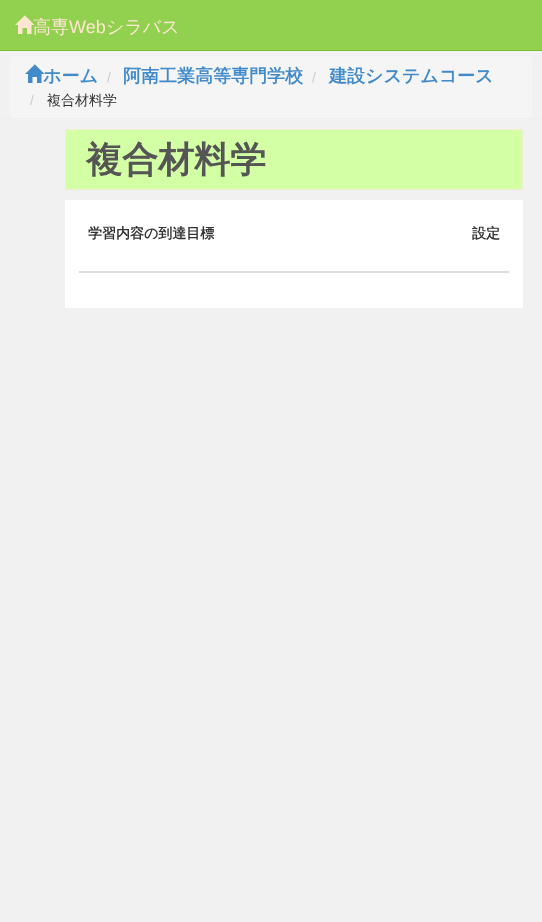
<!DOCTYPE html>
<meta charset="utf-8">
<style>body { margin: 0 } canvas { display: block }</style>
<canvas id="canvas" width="542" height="922"></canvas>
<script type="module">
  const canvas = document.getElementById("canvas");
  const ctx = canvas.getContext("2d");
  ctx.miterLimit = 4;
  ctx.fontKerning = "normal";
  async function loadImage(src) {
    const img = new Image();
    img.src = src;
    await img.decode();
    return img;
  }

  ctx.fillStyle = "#f1f1f1";
  ctx.fillRect(0, 0, 542, 922);
  ctx.fillStyle = "#92d050";
  ctx.fillRect(0, 0, 542, 50);
  ctx.fillStyle = "#7cbf33";
  ctx.fillRect(0, 50, 542, 1);
  ctx.font = "500 18px WenQuanYi Zen Hei";
  ctx.fillStyle = "#ffe6d1";
  ctx.fillText("高専", 33, 33);
  ctx.drawImage(await loadImage("img1.png"), 15, 15, 20, 19);
  ctx.font = "18px Liberation Sans";
  ctx.fillText("Web", 69, 33);
  ctx.font = "500 18px WenQuanYi Zen Hei";
  ctx.fillText("シラバス", 106, 33);
  ctx.fillStyle = "#eeeeee";
  ctx.fillRect(0, 118, 542, 1);
  ctx.fillStyle = "#f5f5f5";
  ctx.beginPath();
  ctx.roundRect(10, 56, 522, 62, 4);
  ctx.fill();
  ctx.font = "bold 18px WenQuanYi Zen Hei";
  ctx.fillStyle = "#428bca";
  ctx.fillText("ホーム", 43, 82);
  ctx.drawImage(await loadImage("img2.png"), 25, 64, 20, 19);
  ctx.font = "14px Liberation Sans";
  ctx.fillStyle = "#cccccc";
  ctx.fillText("/", 107, 82);
  ctx.font = "bold 18px WenQuanYi Zen Hei";
  ctx.fillStyle = "#428bca";
  ctx.fillText("阿南工業高等専門学校", 123, 82);
  ctx.font = "14px Liberation Sans";
  ctx.fillStyle = "#cccccc";
  ctx.fillText("/", 312, 82);
  ctx.font = "bold 18px WenQuanYi Zen Hei";
  ctx.fillStyle = "#428bca";
  ctx.fillText("建設システムコース", 329, 82);
  ctx.font = "14px Liberation Sans";
  ctx.fillStyle = "#cccccc";
  ctx.fillText("/", 30, 105);
  ctx.font = "500 14px WenQuanYi Zen Hei";
  ctx.fillStyle = "#333333";
  ctx.fillText("複合材料学", 47, 105);
  ctx.fillStyle = "#d3ffa5";
  ctx.beginPath();
  ctx.rect(65.5, 129.5, 457, 60);
  ctx.fill();
  ctx.strokeStyle = "#f1ecd2";
  ctx.stroke();
  ctx.font = "bold 36px WenQuanYi Zen Hei";
  ctx.fillStyle = "#555555";
  ctx.fillText("複合材料学", 86, 172);
  ctx.fillStyle = "#ffffff";
  ctx.fillRect(65, 200, 458, 108);
  ctx.font = "bold 14px WenQuanYi Zen Hei";
  ctx.fillStyle = "#333333";
  ctx.fillText("学習内容の到達目標", 88, 238);
  ctx.fillStyle = "#dddddd";
  ctx.fillRect(79, 271, 430, 2);
  ctx.fillStyle = "#333333";
  ctx.fillText("設定", 472, 238);
</script>
